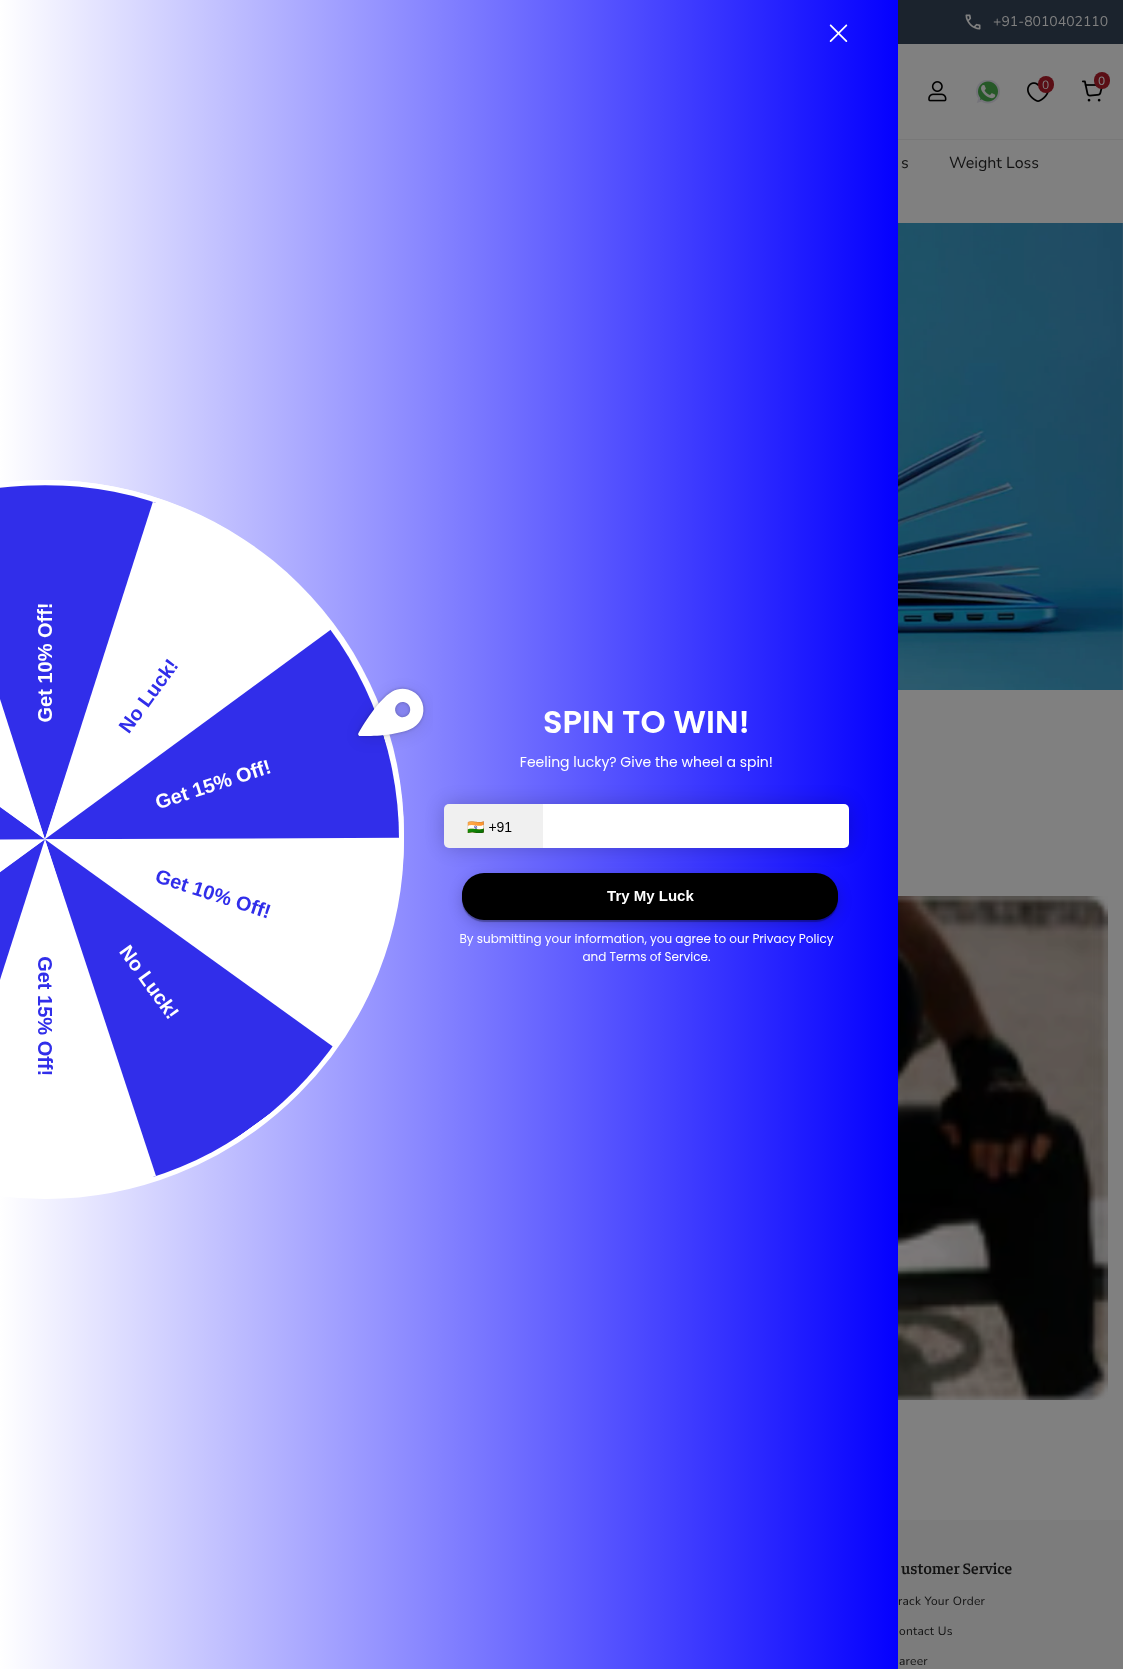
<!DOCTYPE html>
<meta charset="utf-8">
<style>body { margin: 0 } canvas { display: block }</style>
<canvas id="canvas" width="1123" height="1669"></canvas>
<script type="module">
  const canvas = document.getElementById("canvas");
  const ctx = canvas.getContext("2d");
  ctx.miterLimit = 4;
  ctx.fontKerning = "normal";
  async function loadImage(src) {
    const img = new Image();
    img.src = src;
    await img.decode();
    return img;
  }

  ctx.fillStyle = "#808080";
  ctx.fillRect(0, 0, 1123, 1669);
  ctx.drawImage(await loadImage("img1.png"), 0, 0, 898, 1669);
  ctx.fillStyle = "#1b232d";
  ctx.fillRect(898, 0, 225, 44);
  ctx.drawImage(await loadImage("img2.png"), 965, 14, 16, 16);
  ctx.font = "14px Nunito";
  ctx.fillStyle = "#808080";
  ctx.fillText("+91-8010402110", 993, 26);
  ctx.drawImage(await loadImage("img3.png"), 928, 81, 19, 21);
  ctx.drawImage(await loadImage("img4.png"), 976, 80, 24, 24);
  ctx.drawImage(await loadImage("img5.png"), 1027, 82, 22, 20);
  ctx.fillStyle = "#5a0e15";
  ctx.beginPath();
  ctx.roundRect(1038, 76, 16, 17, 8);
  ctx.fill();
  ctx.font = "12px Nunito";
  ctx.fillStyle = "#808080";
  ctx.fillText("0", 1042, 89);
  ctx.drawImage(await loadImage("img6.png"), 1081, 80, 22, 22);
  ctx.fillStyle = "#5a0e15";
  ctx.beginPath();
  ctx.roundRect(1094, 72, 16, 17, 8);
  ctx.fill();
  ctx.font = "500 12px Nunito";
  ctx.fillStyle = "#808080";
  ctx.fillText("0", 1098, 85);
  ctx.fillStyle = "#787878";
  ctx.fillRect(898, 139, 225, 1);
  ctx.font = "16px Nunito";
  ctx.fillStyle = "#121212";
  ctx.fillText("s", 901, 168);
  ctx.fillText("Weight Loss", 949, 168);
  ctx.drawImage(await loadImage("img7.png"), 898, 223, 225, 467);
  ctx.drawImage(await loadImage("img8.png"), 898, 896, 210, 504);
  ctx.fillStyle = "#7c7c7c";
  ctx.fillRect(898, 1520, 225, 149);
  ctx.font = "600 16px Faustina";
  ctx.fillStyle = "#121212";
  ctx.fillText("ustomer Service", 901, 1574);
  ctx.letterSpacing = "0.25px";
  ctx.font = "12px Nunito";
  ctx.fillText("rack Your Order", 898, 1605);
  ctx.fillText("ontact Us", 899, 1635);
  ctx.fillText("areer", 899, 1665);
</script>
